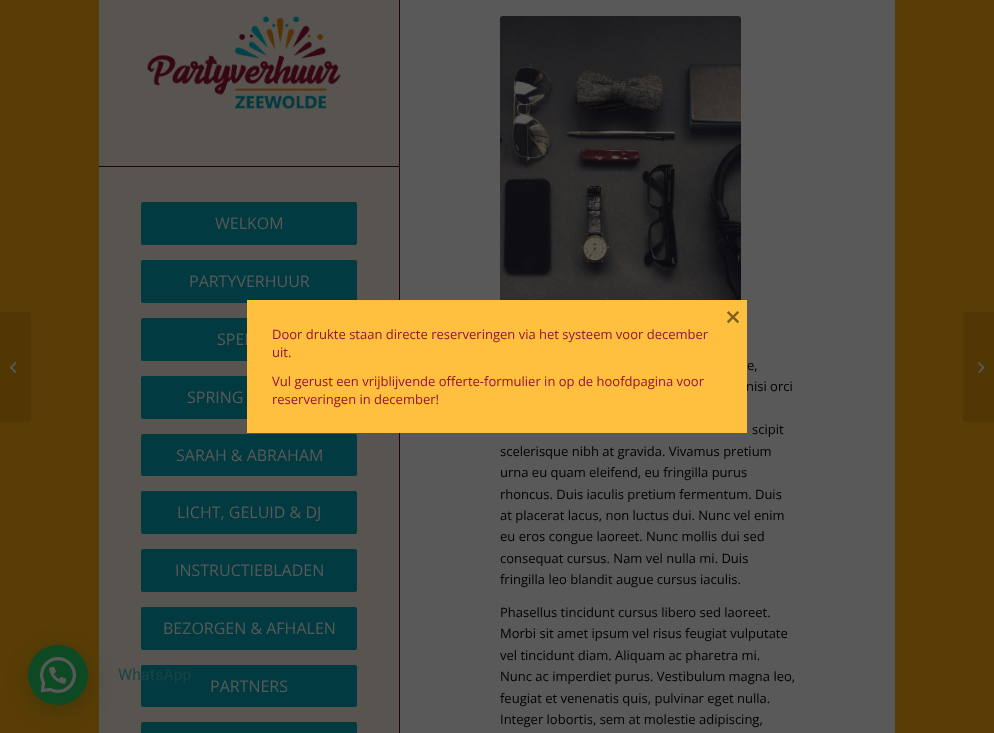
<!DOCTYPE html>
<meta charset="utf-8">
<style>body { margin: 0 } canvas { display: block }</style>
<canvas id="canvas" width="994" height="733"></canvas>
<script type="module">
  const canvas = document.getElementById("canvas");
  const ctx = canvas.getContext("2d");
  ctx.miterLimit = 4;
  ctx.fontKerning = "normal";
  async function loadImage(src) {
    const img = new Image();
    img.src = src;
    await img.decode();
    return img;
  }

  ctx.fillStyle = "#593d05";
  ctx.fillRect(0, 0, 994, 733);
  ctx.fillStyle = "#585450";
  ctx.fillRect(99, 0, 300, 733);
  ctx.fillStyle = "#513704";
  ctx.beginPath();
  ctx.roundRect(0, 312, 31, 110, [0, 4, 4, 0]);
  ctx.fill();
  ctx.drawImage(await loadImage("img1.png"), 10, 362, 7, 12);
  ctx.fillStyle = "#1f020b";
  ctx.fillRect(99, 166, 300, 1);
  ctx.drawImage(await loadImage("img2.png"), 147, 16, 194, 93);
  ctx.fillStyle = "#013b41";
  ctx.beginPath();
  ctx.roundRect(142, 203, 214, 41, 1);
  ctx.fill();
  ctx.strokeStyle = "#013b41";
  ctx.lineWidth = 2;
  ctx.stroke();
  ctx.font = "16px Open Sans";
  ctx.fillStyle = "#595959";
  ctx.fillText("WELKOM", 215, 229);
  ctx.fillStyle = "#013b41";
  ctx.beginPath();
  ctx.roundRect(142, 261, 214, 41, 1);
  ctx.fill();
  ctx.stroke();
  ctx.fillStyle = "#595959";
  ctx.fillText("PARTYVERHUUR", 189, 287);
  ctx.fillStyle = "#013b41";
  ctx.beginPath();
  ctx.roundRect(142, 319, 214, 41, 1);
  ctx.fill();
  ctx.stroke();
  ctx.fillStyle = "#595959";
  ctx.fillText("SPEL", 217, 345);
  ctx.fillStyle = "#013b41";
  ctx.beginPath();
  ctx.roundRect(142, 377, 214, 41, 1);
  ctx.fill();
  ctx.stroke();
  ctx.fillStyle = "#595959";
  ctx.fillText("SPRING", 187, 403);
  ctx.fillStyle = "#013b41";
  ctx.beginPath();
  ctx.roundRect(142, 435, 214, 40, 1);
  ctx.fill();
  ctx.stroke();
  ctx.fillStyle = "#595959";
  ctx.fillText("SARAH & ABRAHAM", 176, 461);
  ctx.fillStyle = "#013b41";
  ctx.beginPath();
  ctx.roundRect(142, 492, 214, 41, 1);
  ctx.fill();
  ctx.stroke();
  ctx.fillStyle = "#595959";
  ctx.fillText("LICHT, GELUID & DJ", 177, 518);
  ctx.fillStyle = "#013b41";
  ctx.beginPath();
  ctx.roundRect(142, 550, 214, 41, 1);
  ctx.fill();
  ctx.stroke();
  ctx.fillStyle = "#595959";
  ctx.fillText("INSTRUCTIEBLADEN", 175, 576);
  ctx.fillStyle = "#013b41";
  ctx.beginPath();
  ctx.roundRect(142, 608, 214, 41, 1);
  ctx.fill();
  ctx.stroke();
  ctx.fillStyle = "#595959";
  ctx.fillText("BEZORGEN & AFHALEN", 163, 634);
  ctx.fillStyle = "#013b41";
  ctx.beginPath();
  ctx.roundRect(142, 666, 214, 40, 1);
  ctx.fill();
  ctx.stroke();
  ctx.fillStyle = "#595959";
  ctx.fillText("PARTNERS", 210, 692);
  ctx.fillStyle = "#013b41";
  ctx.beginPath();
  ctx.roundRect(142, 723, 214, 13, 1);
  ctx.fill();
  ctx.stroke();
  ctx.fillStyle = "#1f020b";
  ctx.fillRect(399, 0, 1, 733);
  ctx.fillStyle = "#595959";
  ctx.fillRect(400, 0, 495, 733);
  ctx.drawImage(await loadImage("img3.png"), 500, 16, 241, 284);
  ctx.font = "13px Open Sans";
  ctx.fillStyle = "#000000";
  ctx.fillText("e,", 747, 370);
  ctx.fillText("nisi orci", 746, 391);
  ctx.fillText("scipit", 752, 434);
  ctx.fillText("scelerisque nibh at gravida. Vivamus pretium", 500, 456);
  ctx.fillText("urna eu quam eleifend, eu fringilla purus", 500, 477);
  ctx.fillText("rhoncus. Duis iaculis pretium fermentum. Duis", 500, 499);
  ctx.fillText("at placerat lacus, non luctus dui. Nunc vel enim", 500, 520);
  ctx.fillText("eu eros congue laoreet. Nunc mollis dui sed", 500, 541);
  ctx.fillText("consequat cursus. Nam vel nulla mi. Duis", 500, 563);
  ctx.fillText("fringilla leo blandit augue cursus iaculis.", 500, 584);
  ctx.fillText("Phasellus tincidunt cursus libero sed laoreet.", 500, 617);
  ctx.fillText("Morbi sit amet ipsum vel risus feugiat vulputate", 500, 638);
  ctx.fillText("vel tincidunt diam. Aliquam ac pharetra mi.", 500, 660);
  ctx.fillText("Nunc ac imperdiet purus. Vestibulum magna leo,", 500, 681);
  ctx.fillText("feugiat et venenatis quis, pulvinar eget nulla.", 500, 703);
  ctx.fillText("Integer lobortis, sem at molestie adipiscing,", 500, 724);
  ctx.fillStyle = "#513704";
  ctx.beginPath();
  ctx.roundRect(963, 312, 31, 110, [4, 0, 0, 4]);
  ctx.fill();
  ctx.drawImage(await loadImage("img4.png"), 978, 362, 7, 12);
  ctx.fillStyle = "#ffbf3f";
  ctx.fillRect(247, 300, 500, 133);
  ctx.font = "600 28px Open Sans";
  ctx.fillStyle = "#806020";
  ctx.fillText("×", 725, 327);
  ctx.font = "13px Open Sans";
  ctx.fillStyle = "#951337";
  ctx.fillText("Door drukte staan directe reserveringen via het systeem voor december", 272, 339);
  ctx.fillText("uit.", 272, 357);
  ctx.fillText("Vul gerust een vrijblijvende offerte-formulier in op de hoofdpagina voor", 272, 386);
  ctx.fillText("reserveringen in december!", 272, 404);
  ctx.fillStyle = "rgba(2, 33, 29, 0.24)";
  ctx.filter = "blur(12px)";
  ctx.beginPath();
  ctx.roundRect(29, 651, 60, 60, 30);
  ctx.fill();
  ctx.filter = "none";
  ctx.fillStyle = "#0d4a24";
  ctx.beginPath();
  ctx.arc(58, 675, 30, 0, Math.PI * 2);
  ctx.fill();
  ctx.drawImage(await loadImage("img5.png"), 40, 657, 36, 36);
  ctx.font = "16px Roboto";
  ctx.fillStyle = "#1b4346";
  ctx.fillText("WhatsApp", 118, 680);
</script>
